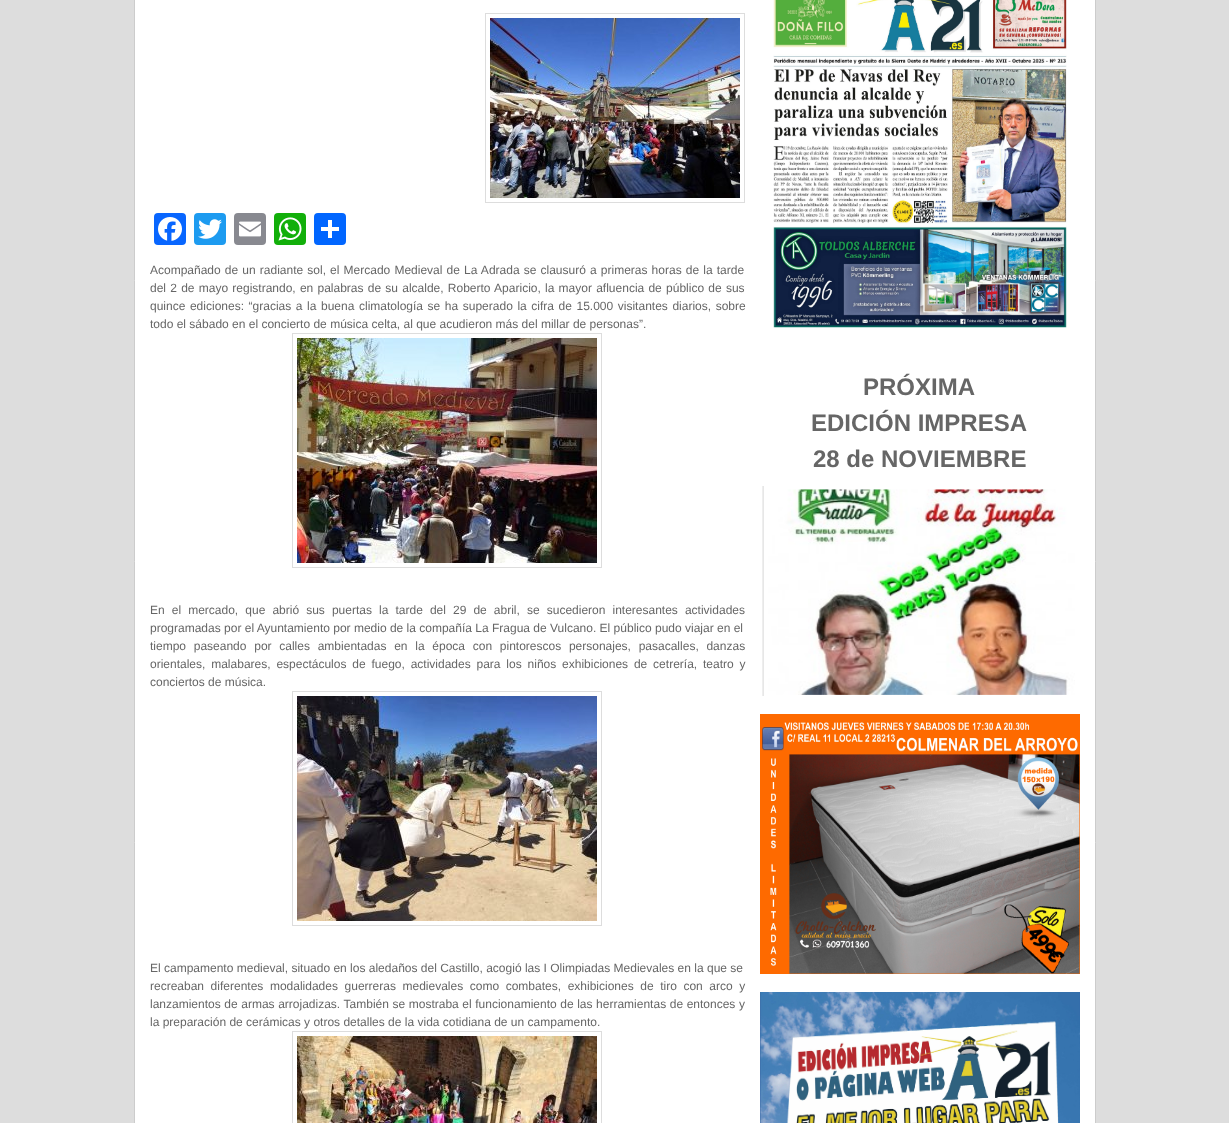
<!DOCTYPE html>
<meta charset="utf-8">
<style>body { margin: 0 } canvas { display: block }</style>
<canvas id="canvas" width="1229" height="1123"></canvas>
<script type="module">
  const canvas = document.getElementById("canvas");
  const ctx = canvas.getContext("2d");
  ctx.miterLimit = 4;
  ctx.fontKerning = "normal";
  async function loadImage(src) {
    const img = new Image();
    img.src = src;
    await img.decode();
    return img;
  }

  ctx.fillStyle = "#dddddd";
  ctx.fillRect(0, 0, 1229, 1123);
  ctx.fillStyle = "#ffffff";
  ctx.beginPath();
  ctx.rect(134.5, -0.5, 961, 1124);
  ctx.fill();
  ctx.strokeStyle = "#cccccc";
  ctx.stroke();
  ctx.strokeStyle = "#dddddd";
  ctx.strokeRect(485.5, 13.5, 259, 189);
  ctx.drawImage(await loadImage("img1.png"), 490, 18, 250, 180);
  ctx.fillStyle = "#0866ff";
  ctx.beginPath();
  ctx.roundRect(154, 213, 32, 32, 4);
  ctx.fill();
  ctx.drawImage(await loadImage("img2.png"), 158, 217, 24, 24);
  ctx.fillStyle = "#1d9bf0";
  ctx.beginPath();
  ctx.roundRect(194, 213, 32, 32, 4);
  ctx.fill();
  ctx.drawImage(await loadImage("img3.png"), 198, 219, 24, 20);
  ctx.fillStyle = "#888990";
  ctx.beginPath();
  ctx.roundRect(234, 213, 32, 32, 4);
  ctx.fill();
  ctx.drawImage(await loadImage("img4.png"), 239, 221, 22, 16);
  ctx.fillStyle = "#12af0a";
  ctx.beginPath();
  ctx.roundRect(274, 213, 32, 32, 4);
  ctx.fill();
  ctx.drawImage(await loadImage("img5.png"), 278, 217, 24, 24);
  ctx.fillStyle = "#0166ff";
  ctx.beginPath();
  ctx.roundRect(314, 213, 32, 32, 4);
  ctx.fill();
  ctx.fillStyle = "#ffffff";
  ctx.fillRect(328, 220, 4, 18);
  ctx.fillRect(321, 227, 18, 4);
  ctx.wordSpacing = "0.8px";
  ctx.font = "12px Liberation Sans";
  ctx.fillStyle = "#666666";
  ctx.fillText("Acompañado de un radiante sol, el Mercado Medieval de La Adrada se clausuró a primeras horas de la tarde", 150, 274);
  ctx.wordSpacing = "0.9px";
  ctx.fillText("del 2 de mayo registrando, en palabras de su alcalde, Roberto Aparicio, la mayor afluencia de público de sus", 150, 292);
  ctx.wordSpacing = "1.25px";
  ctx.fillText("quince ediciones: “gracias a la buena climatología se ha superado la cifra de 15.000 visitantes diarios, sobre", 150, 310);
  ctx.wordSpacing = "0px";
  ctx.fillText("todo el sábado en el concierto de música celta, al que acudieron más del millar de personas”.", 150, 328);
  ctx.strokeRect(292.5, 333.5, 309, 234);
  ctx.drawImage(await loadImage("img6.png"), 297, 338, 300, 225);
  ctx.wordSpacing = "3.75px";
  ctx.fillText("En el mercado, que abrió sus puertas la tarde del 29 de abril, se sucedieron interesantes actividades", 150, 614);
  ctx.wordSpacing = "0px";
  ctx.fillText("programadas por el Ayuntamiento por medio de la compañía La Fragua de Vulcano. El público pudo viajar en el", 150, 632);
  ctx.wordSpacing = "4.4px";
  ctx.fillText("tiempo paseando por calles ambientadas en la época con pintorescos personajes, pasacalles, danzas", 150, 650);
  ctx.wordSpacing = "2.5px";
  ctx.fillText("orientales, malabares, espectáculos de fuego, actividades para los niños exhibiciones de cetrería, teatro y", 150, 668);
  ctx.wordSpacing = "0px";
  ctx.fillText("conciertos de música.", 150, 686);
  ctx.strokeRect(292.5, 691.5, 309, 234);
  ctx.drawImage(await loadImage("img7.png"), 297, 696, 300, 225);
  ctx.fillText("El campamento medieval, situado en los aledaños del Castillo, acogió las I Olimpiadas Medievales en la que se", 150, 972);
  ctx.wordSpacing = "3.25px";
  ctx.fillText("recreaban diferentes modalidades guerreras medievales como combates, exhibiciones de tiro con arco y", 150, 990);
  ctx.wordSpacing = "0.25px";
  ctx.fillText("lanzamientos de armas arrojadizas. También se mostraba el funcionamiento de las herramientas de entonces y", 150, 1008);
  ctx.wordSpacing = "0px";
  ctx.fillText("la preparación de cerámicas y otros detalles de la vida cotidiana de un campamento.", 150, 1026);
  ctx.strokeRect(292.5, 1031.5, 309, 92);
  ctx.drawImage(await loadImage("img8.png"), 297, 1036, 300, 87);
  ctx.drawImage(await loadImage("img9.png"), 773, 0, 294, 328);
  ctx.font = "bold 24px Liberation Sans";
  ctx.fillText("PRÓXIMA", 863, 395);
  ctx.fillText("EDICIÓN IMPRESA", 811, 431);
  ctx.fillText("28 de NOVIEMBRE", 813, 467);
  ctx.drawImage(await loadImage("img10.png"), 762, 486, 313, 210);
  ctx.drawImage(await loadImage("img11.png"), 760, 714, 320, 260);
  ctx.drawImage(await loadImage("img12.png"), 760, 992, 320, 131);
</script>
